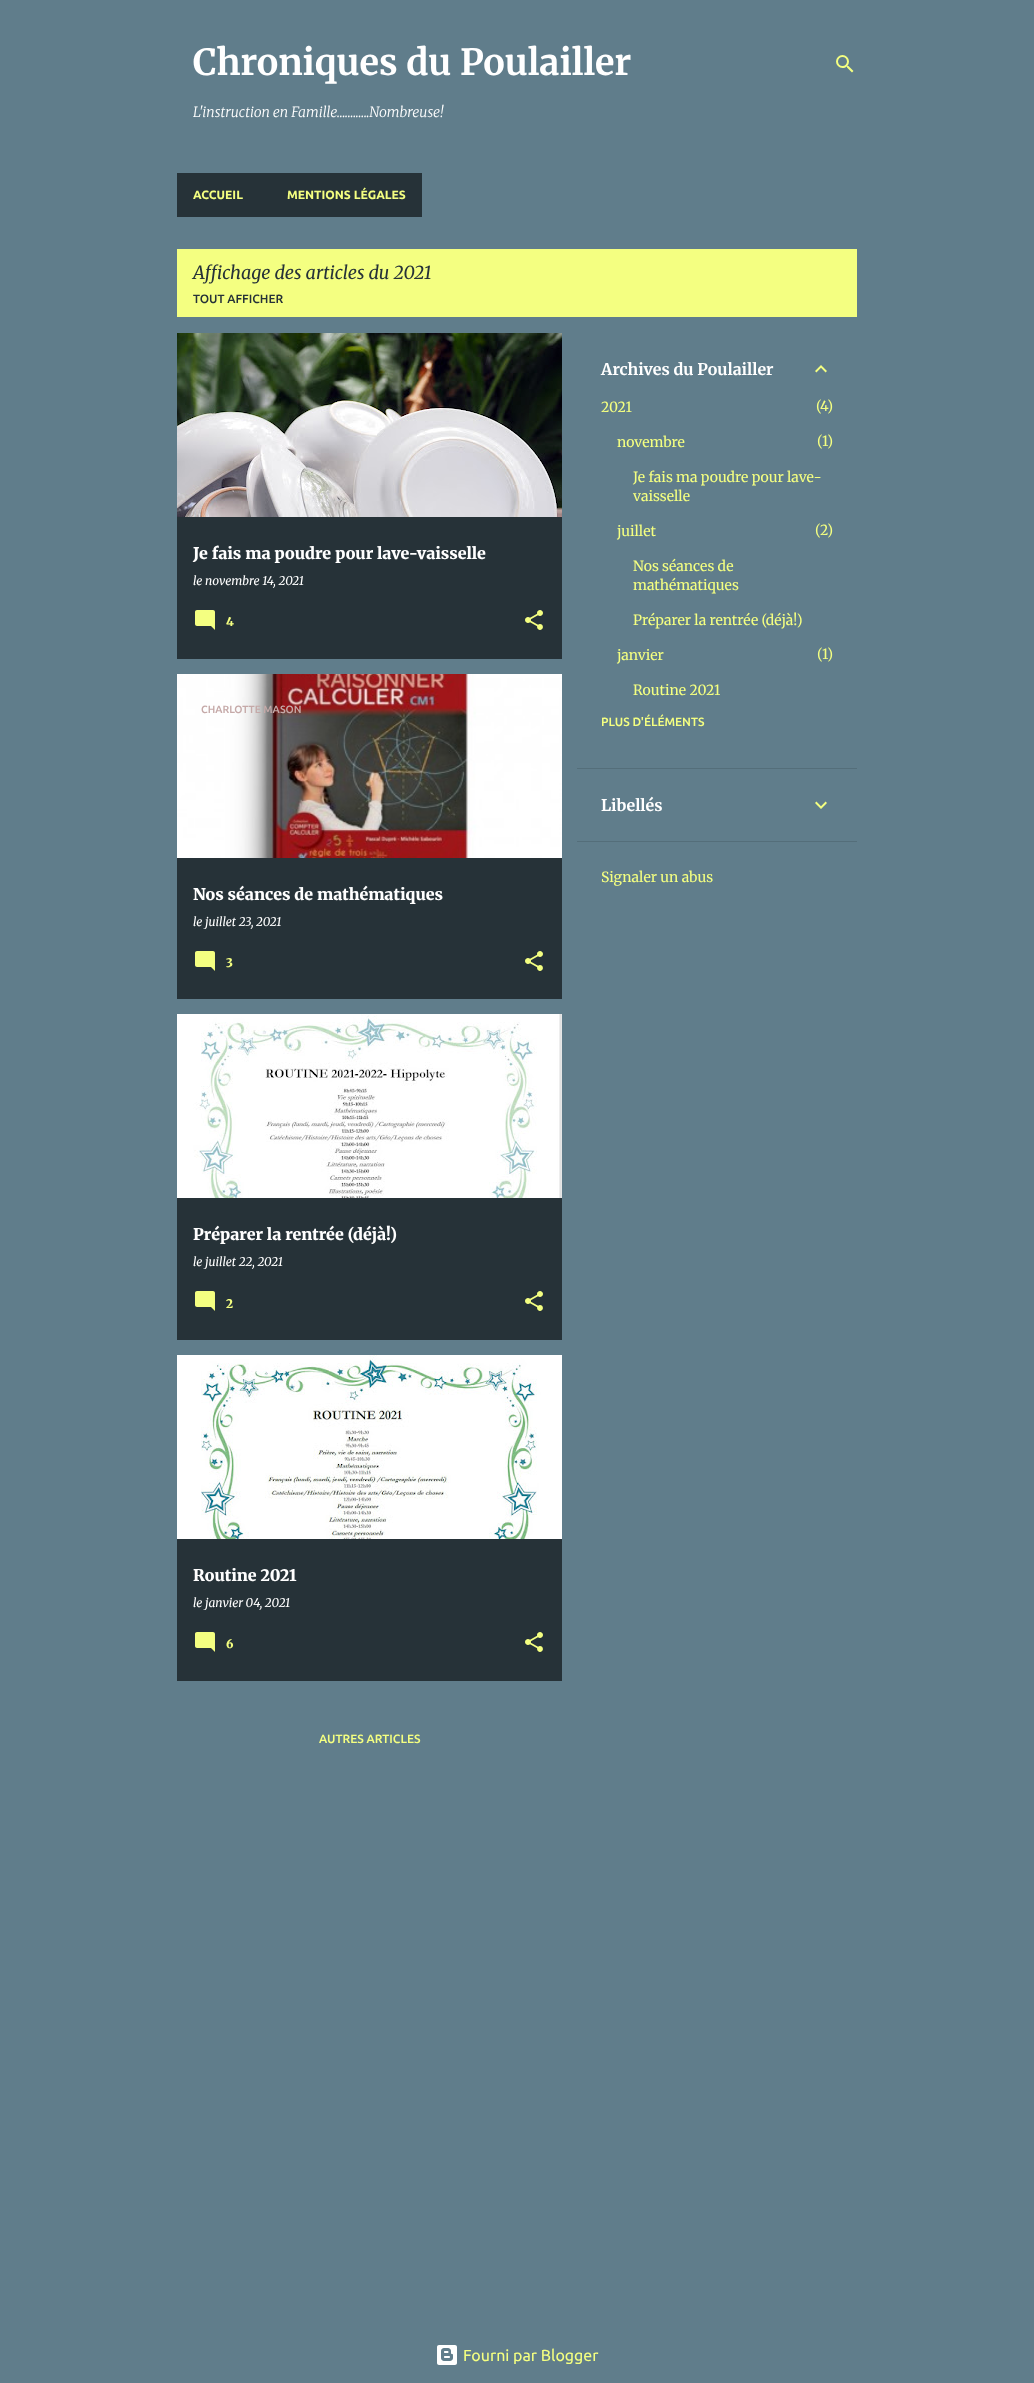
<!DOCTYPE html>
<meta charset="utf-8">
<style>body { margin: 0 } canvas { display: block }</style>
<canvas id="canvas" width="1034" height="2383"></canvas>
<script type="module">
  const canvas = document.getElementById("canvas");
  const ctx = canvas.getContext("2d");
  ctx.miterLimit = 4;
  ctx.fontKerning = "normal";
  async function loadImage(src) {
    const img = new Image();
    img.src = src;
    await img.decode();
    return img;
  }

  ctx.fillStyle = "#607d8b";
  ctx.fillRect(0, 0, 1034, 2383);
  ctx.font = "bold 36px Merriweather";
  ctx.fillStyle = "#ffffff";
  ctx.fillText("Chroniques du Poulailler", 193, 75);
  ctx.font = "italic 300 14px Merriweather";
  ctx.fillText("L'instruction en Famille............Nombreuse!", 193, 117);
  ctx.drawImage(await loadImage("img1.png"), 836, 55, 18, 18);
  ctx.fillStyle = "#263238";
  ctx.fillRect(177, 173, 245, 44);
  ctx.font = "bold 12px Ubuntu";
  ctx.fillStyle = "#f4ff81";
  ctx.fillText("ACCUEIL", 193, 199);
  ctx.fillText("MENTIONS LÉGALES", 287, 199);
  ctx.fillRect(177, 249, 680, 68);
  ctx.font = "italic 18px Merriweather";
  ctx.fillStyle = "#263238";
  ctx.fillText("Affichage des articles du 2021", 193, 279);
  ctx.font = "500 12px Ubuntu";
  ctx.fillText("TOUT AFFICHER", 193, 303);
  ctx.fillRect(177, 517, 385, 142);
  ctx.drawImage(await loadImage("img2.png"), 177, 333, 385, 184);
  ctx.font = "900 16px Merriweather";
  ctx.fillStyle = "#ffffff";
  ctx.fillText("Je fais ma poudre pour lave-vaisselle", 193, 559);
  ctx.font = "italic 12px Merriweather";
  ctx.fillText("le novembre 14, 2021", 193, 585);
  ctx.drawImage(await loadImage("img3.png"), 195, 610, 20, 20);
  ctx.font = "900 12px Merriweather";
  ctx.fillStyle = "#f4ff81";
  ctx.fillText("4", 226, 626);
  ctx.drawImage(await loadImage("img4.png"), 525, 610, 18, 20);
  ctx.fillStyle = "#263238";
  ctx.fillRect(177, 858, 385, 141);
  ctx.drawImage(await loadImage("img5.png"), 177, 674, 385, 184);
  ctx.font = "500 10.5px Ubuntu";
  ctx.fillStyle = "#c5a9a8";
  ctx.fillText("CHARLOTTE MASON", 201, 713);
  ctx.font = "italic 12px Merriweather";
  ctx.fillStyle = "#ffffff";
  ctx.fillText("le juillet 23, 2021", 193, 926);
  ctx.font = "900 16px Merriweather";
  ctx.fillText("Nos séances de mathématiques", 193, 900);
  ctx.drawImage(await loadImage("img3.png"), 195, 951, 20, 20);
  ctx.font = "900 12px Merriweather";
  ctx.fillStyle = "#f4ff81";
  ctx.fillText("3", 226, 967);
  ctx.drawImage(await loadImage("img4.png"), 525, 951, 18, 20);
  ctx.fillStyle = "#263238";
  ctx.fillRect(177, 1198, 385, 142);
  ctx.drawImage(await loadImage("img6.png"), 177, 1014, 385, 184);
  ctx.font = "900 16px Merriweather";
  ctx.fillStyle = "#ffffff";
  ctx.fillText("Préparer la rentrée (déjà!)", 193, 1240);
  ctx.font = "italic 12px Merriweather";
  ctx.fillText("le juillet 22, 2021", 193, 1266);
  ctx.drawImage(await loadImage("img3.png"), 195, 1291, 20, 20);
  ctx.font = "900 12px Merriweather";
  ctx.fillStyle = "#f4ff81";
  ctx.fillText("2", 226, 1308);
  ctx.drawImage(await loadImage("img4.png"), 525, 1291, 18, 20);
  ctx.fillStyle = "#263238";
  ctx.fillRect(177, 1539, 385, 142);
  ctx.drawImage(await loadImage("img7.png"), 177, 1355, 385, 184);
  ctx.font = "900 16px Merriweather";
  ctx.fillStyle = "#ffffff";
  ctx.fillText("Routine 2021", 193, 1581);
  ctx.font = "italic 12px Merriweather";
  ctx.fillText("le janvier 04, 2021", 193, 1607);
  ctx.drawImage(await loadImage("img3.png"), 195, 1632, 20, 20);
  ctx.font = "900 12px Merriweather";
  ctx.fillStyle = "#f4ff81";
  ctx.fillText("6", 226, 1648);
  ctx.drawImage(await loadImage("img4.png"), 525, 1632, 18, 20);
  ctx.font = "500 12px Ubuntu";
  ctx.fillText("AUTRES ARTICLES", 319, 1743);
  ctx.font = "bold 16px Merriweather";
  ctx.fillStyle = "#ffffff";
  ctx.fillText("Archives du Poulailler", 601, 375);
  ctx.drawImage(await loadImage("img8.png"), 815, 365, 12, 8);
  ctx.font = "14px Merriweather";
  ctx.fillStyle = "#f4ff81";
  ctx.fillText("2021", 601, 412);
  ctx.fillText("(", 816, 411);
  ctx.fillText("4", 820, 411);
  ctx.fillText(")", 827, 411);
  ctx.fillText("novembre", 617, 447);
  ctx.fillText("(", 817, 446);
  ctx.fillText("1", 822, 446);
  ctx.fillText(")", 827, 446);
  ctx.fillText("Je fais ma poudre pour lave-", 633, 482);
  ctx.fillText("vaisselle", 633, 501);
  ctx.fillText("juillet", 617, 536);
  ctx.fillText("(", 815, 535);
  ctx.fillText("2", 820, 535);
  ctx.fillText(")", 827, 535);
  ctx.fillText("Nos séances de", 633, 571);
  ctx.fillText("mathématiques", 633, 590);
  ctx.fillText("Préparer la rentrée (déjà!)", 633, 625);
  ctx.fillText("janvier", 617, 660);
  ctx.fillText("(", 817, 659);
  ctx.fillText("1", 822, 659);
  ctx.fillText(")", 827, 659);
  ctx.fillText("Routine 2021", 633, 695);
  ctx.font = "500 12px Ubuntu";
  ctx.fillText("PLUS D'ÉLÉMENTS", 601, 726);
  ctx.fillStyle = "#546e7a";
  ctx.fillRect(577, 768, 280, 1);
  ctx.font = "bold 16px Merriweather";
  ctx.fillStyle = "#ffffff";
  ctx.fillText("Libellés", 601, 811);
  ctx.drawImage(await loadImage("img9.png"), 815, 801, 12, 8);
  ctx.fillStyle = "#546e7a";
  ctx.fillRect(577, 841, 280, 1);
  ctx.font = "14px Merriweather";
  ctx.fillStyle = "#f4ff81";
  ctx.fillText("Signaler un abus", 601, 882);
  ctx.drawImage(await loadImage("img10.png"), 437, 2345, 20, 20);
  ctx.font = "16px Ubuntu";
  ctx.fillText("Fourni par Blogger", 463, 2361);
</script>
